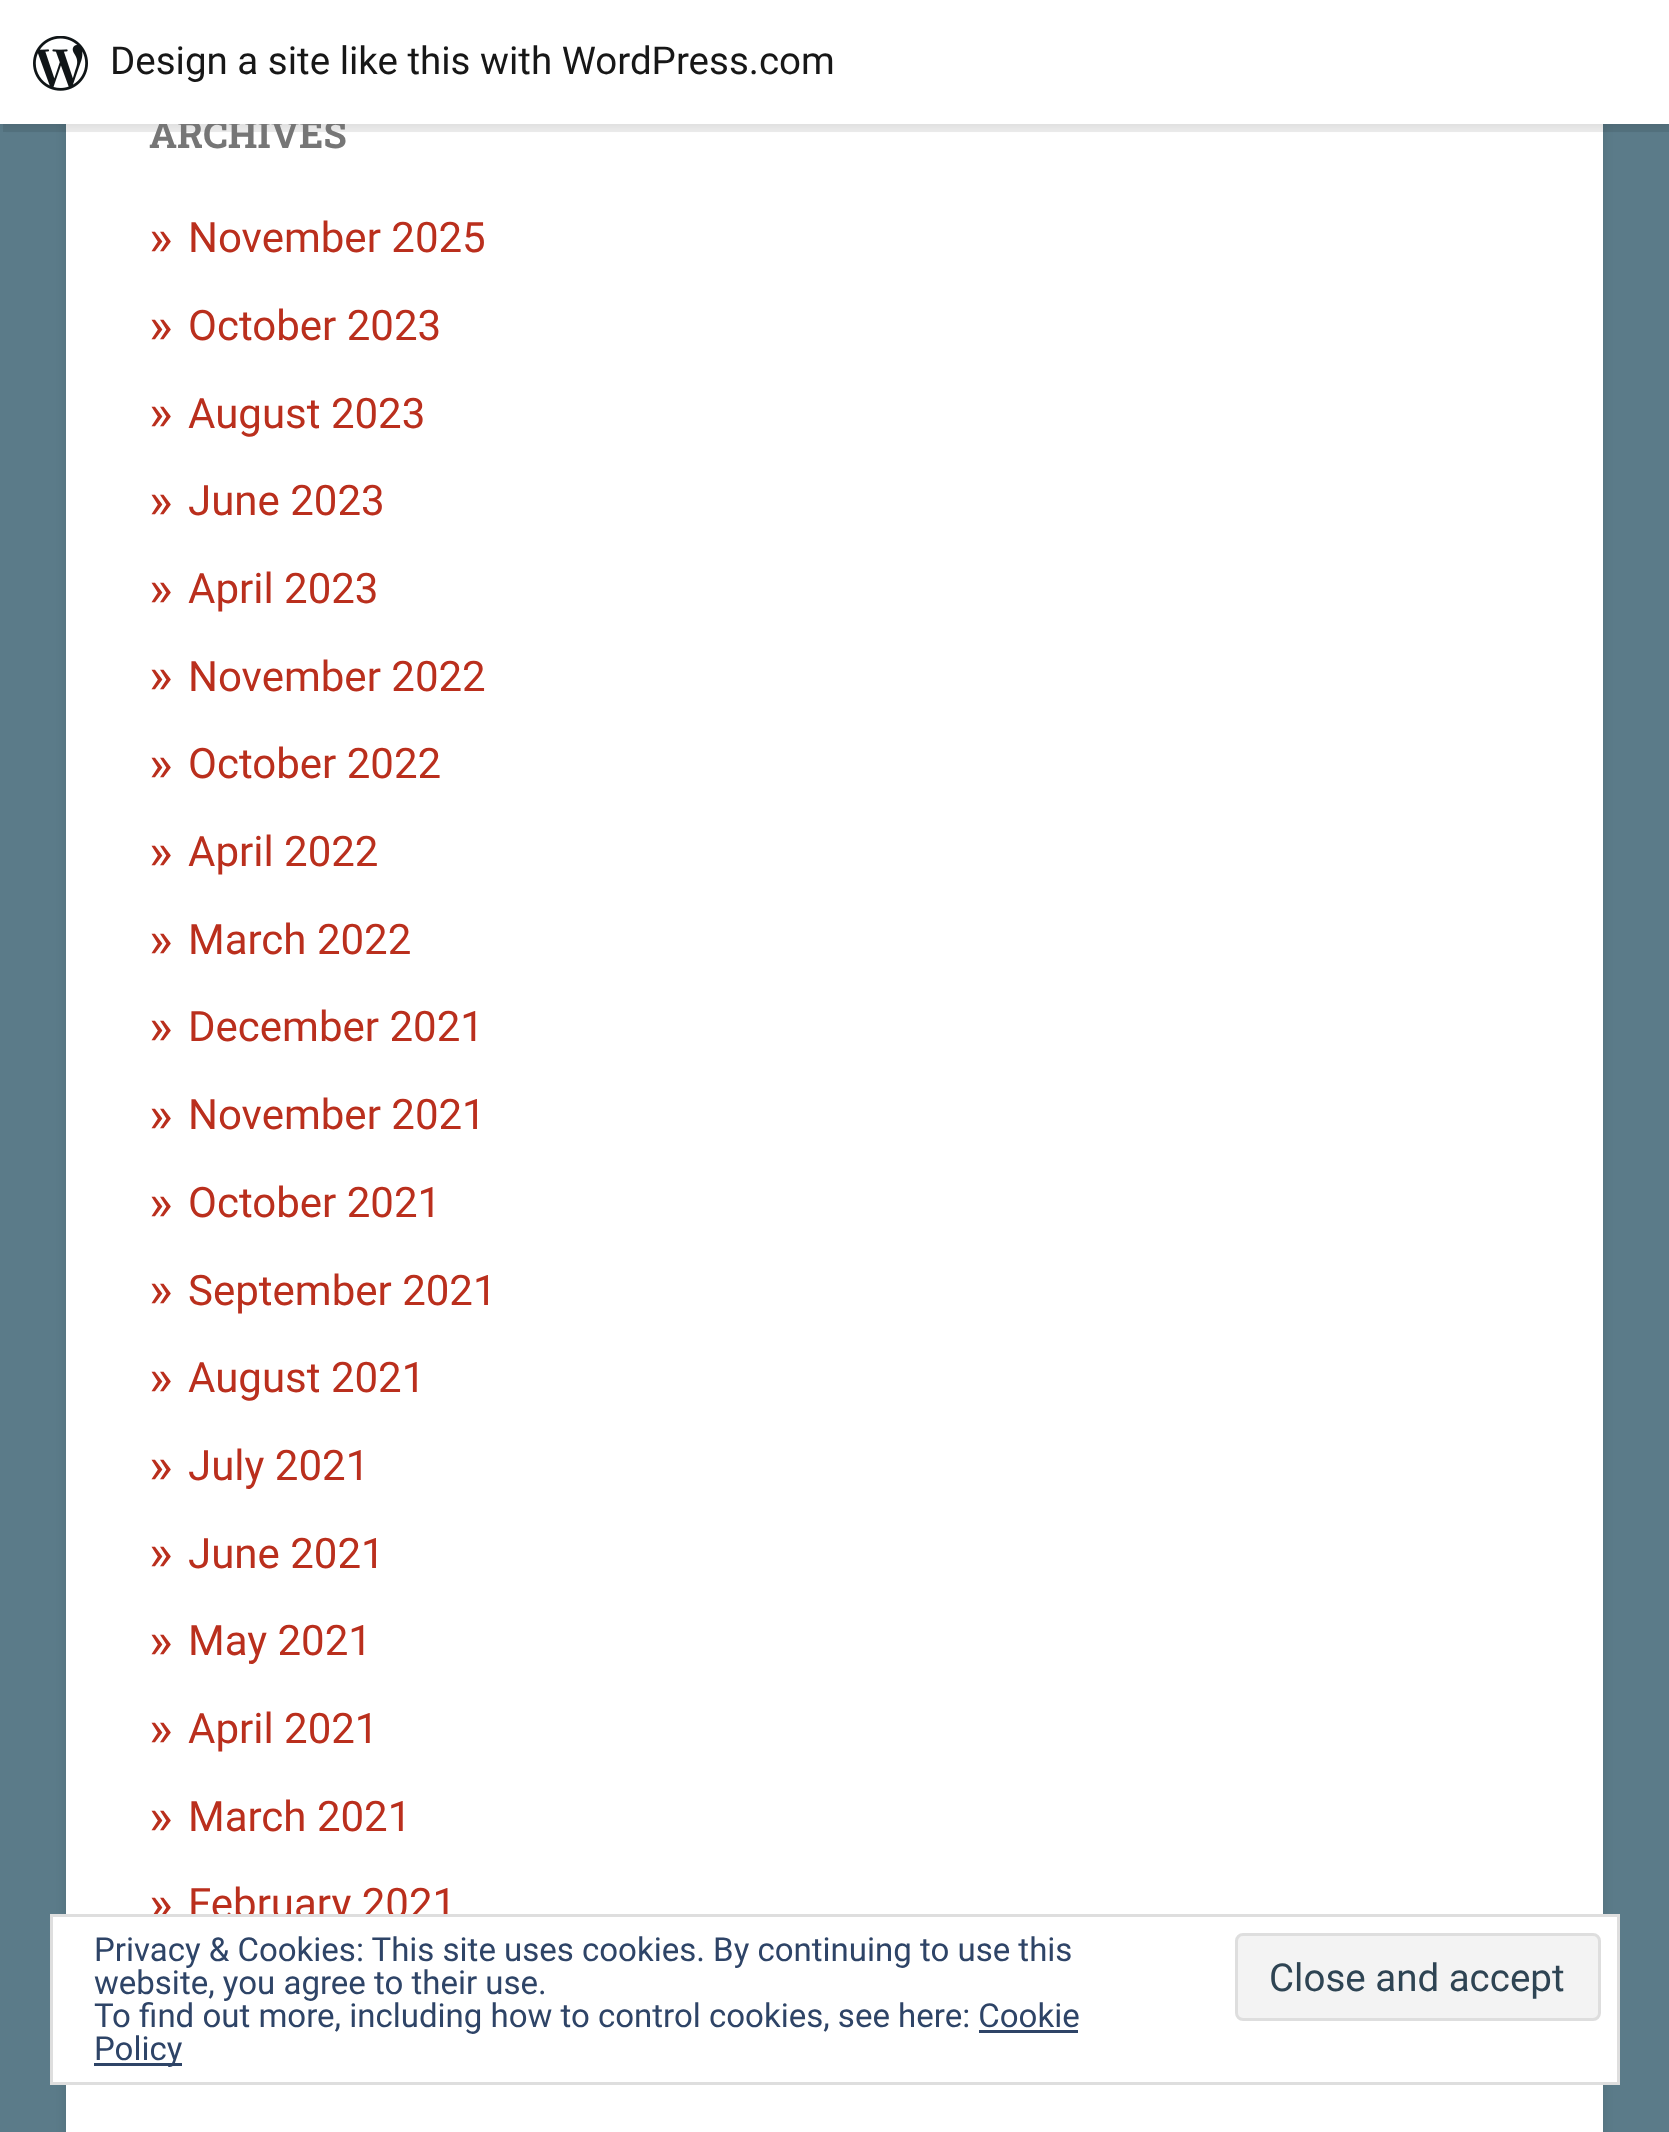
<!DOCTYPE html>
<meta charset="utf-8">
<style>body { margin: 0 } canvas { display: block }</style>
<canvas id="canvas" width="1669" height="2132"></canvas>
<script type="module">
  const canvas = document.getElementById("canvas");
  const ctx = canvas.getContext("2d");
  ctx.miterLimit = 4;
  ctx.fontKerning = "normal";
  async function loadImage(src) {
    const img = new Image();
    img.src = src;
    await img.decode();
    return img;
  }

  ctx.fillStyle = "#5b7b89";
  ctx.fillRect(0, 0, 1669, 2132);
  ctx.fillStyle = "rgba(0, 0, 0, 0.1)";
  ctx.filter = "blur(5.5px)";
  ctx.beginPath();
  ctx.roundRect(66, 39, 1537, 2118, 8);
  ctx.fill();
  ctx.filter = "none";
  ctx.fillStyle = "#ffffff";
  ctx.fillRect(66, 124, 1537, 2008);
  ctx.fillStyle = "rgba(0, 0, 0, 0.05)";
  ctx.filter = "blur(3px)";
  ctx.beginPath();
  ctx.rect(0, 3, 1669, 124);
  ctx.fill();
  ctx.filter = "none";
  ctx.fillStyle = "rgba(0, 0, 0, 0.08)";
  ctx.beginPath();
  ctx.moveTo(3, 124);
  ctx.lineTo(3, 132);
  ctx.lineTo(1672, 132);
  ctx.lineTo(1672, 8);
  ctx.lineTo(1669, 8);
  ctx.lineTo(1669, 124);
  ctx.closePath();
  ctx.fill();
  ctx.font = "bold 38px Roboto Slab";
  ctx.fillStyle = "#767676";
  ctx.fillText("ARCHIVES", 149, 148);
  ctx.fillStyle = "#ffffff";
  ctx.fillRect(0, 0, 1669, 124);
  ctx.drawImage(await loadImage("img1.png"), 33, 36, 55, 55);
  ctx.font = "38.5px Roboto";
  ctx.fillStyle = "#171717";
  ctx.fillText("Design a site like this with WordPress.com", 110, 74);
  ctx.font = "50px Roboto";
  ctx.fillStyle = "#ba2f1d";
  ctx.fillText("»", 149, 255);
  ctx.font = "42px Roboto";
  ctx.fillText("November 2025", 188, 252);
  ctx.font = "50px Roboto";
  ctx.fillText("»", 149, 343);
  ctx.font = "42px Roboto";
  ctx.fillText("October 2023", 188, 340);
  ctx.font = "50px Roboto";
  ctx.fillText("»", 149, 430);
  ctx.font = "42px Roboto";
  ctx.fillText("August 2023", 188, 428);
  ctx.font = "50px Roboto";
  ctx.fillText("»", 149, 518);
  ctx.font = "42px Roboto";
  ctx.fillText("June 2023", 188, 515);
  ctx.font = "50px Roboto";
  ctx.fillText("»", 149, 606);
  ctx.font = "42px Roboto";
  ctx.fillText("April 2023", 188, 603);
  ctx.font = "50px Roboto";
  ctx.fillText("»", 149, 693);
  ctx.font = "42px Roboto";
  ctx.fillText("November 2022", 188, 691);
  ctx.font = "50px Roboto";
  ctx.fillText("»", 149, 781);
  ctx.font = "42px Roboto";
  ctx.fillText("October 2022", 188, 778);
  ctx.font = "50px Roboto";
  ctx.fillText("»", 149, 869);
  ctx.font = "42px Roboto";
  ctx.fillText("April 2022", 188, 866);
  ctx.font = "50px Roboto";
  ctx.fillText("»", 149, 957);
  ctx.font = "42px Roboto";
  ctx.fillText("March 2022", 188, 954);
  ctx.font = "50px Roboto";
  ctx.fillText("»", 149, 1044);
  ctx.font = "42px Roboto";
  ctx.fillText("December 2021", 188, 1041);
  ctx.font = "50px Roboto";
  ctx.fillText("»", 149, 1132);
  ctx.font = "42px Roboto";
  ctx.fillText("November 2021", 188, 1129);
  ctx.font = "50px Roboto";
  ctx.fillText("»", 149, 1220);
  ctx.font = "42px Roboto";
  ctx.fillText("October 2021", 188, 1217);
  ctx.font = "50px Roboto";
  ctx.fillText("»", 149, 1307);
  ctx.font = "42px Roboto";
  ctx.fillText("September 2021", 188, 1305);
  ctx.font = "50px Roboto";
  ctx.fillText("»", 149, 1395);
  ctx.font = "42px Roboto";
  ctx.fillText("August 2021", 188, 1392);
  ctx.font = "50px Roboto";
  ctx.fillText("»", 149, 1483);
  ctx.font = "42px Roboto";
  ctx.fillText("July 2021", 188, 1480);
  ctx.font = "50px Roboto";
  ctx.fillText("»", 149, 1570);
  ctx.font = "42px Roboto";
  ctx.fillText("June 2021", 188, 1568);
  ctx.font = "50px Roboto";
  ctx.fillText("»", 149, 1658);
  ctx.font = "42px Roboto";
  ctx.fillText("May 2021", 188, 1655);
  ctx.font = "50px Roboto";
  ctx.fillText("»", 149, 1746);
  ctx.font = "42px Roboto";
  ctx.fillText("April 2021", 188, 1743);
  ctx.font = "50px Roboto";
  ctx.fillText("»", 149, 1834);
  ctx.font = "42px Roboto";
  ctx.fillText("March 2021", 188, 1831);
  ctx.font = "50px Roboto";
  ctx.fillText("»", 149, 1921);
  ctx.font = "42px Roboto";
  ctx.fillText("February 2021", 188, 1918);
  ctx.fillStyle = "#ffffff";
  ctx.beginPath();
  ctx.rect(51.5, 1915.5, 1567, 168);
  ctx.fill();
  ctx.strokeStyle = "#dedede";
  ctx.lineWidth = 3;
  ctx.stroke();
  ctx.font = "33px Roboto";
  ctx.fillStyle = "#2e4467";
  ctx.fillText("Privacy & Cookies: This site uses cookies. By continuing to use this", 94, 1961);
  ctx.fillText("website, you agree to their use.", 94, 1994);
  ctx.fillStyle = "#f3f3f3";
  ctx.beginPath();
  ctx.roundRect(1236.5, 1934.5, 363, 85, 6.5);
  ctx.fill();
  ctx.stroke();
  ctx.font = "38.5px Roboto";
  ctx.fillStyle = "#2e4453";
  ctx.fillText("Close and accept", 1269, 1991);
  ctx.font = "33px Roboto";
  ctx.fillStyle = "#2e4467";
  ctx.fillText("To find out more, including how to control cookies, see here: Cookie", 94, 2027);
  ctx.fillRect(94, 2063, 88, 3);
  ctx.fillText("Policy", 94, 2060);
  ctx.fillRect(979, 2030, 99, 3);
</script>
